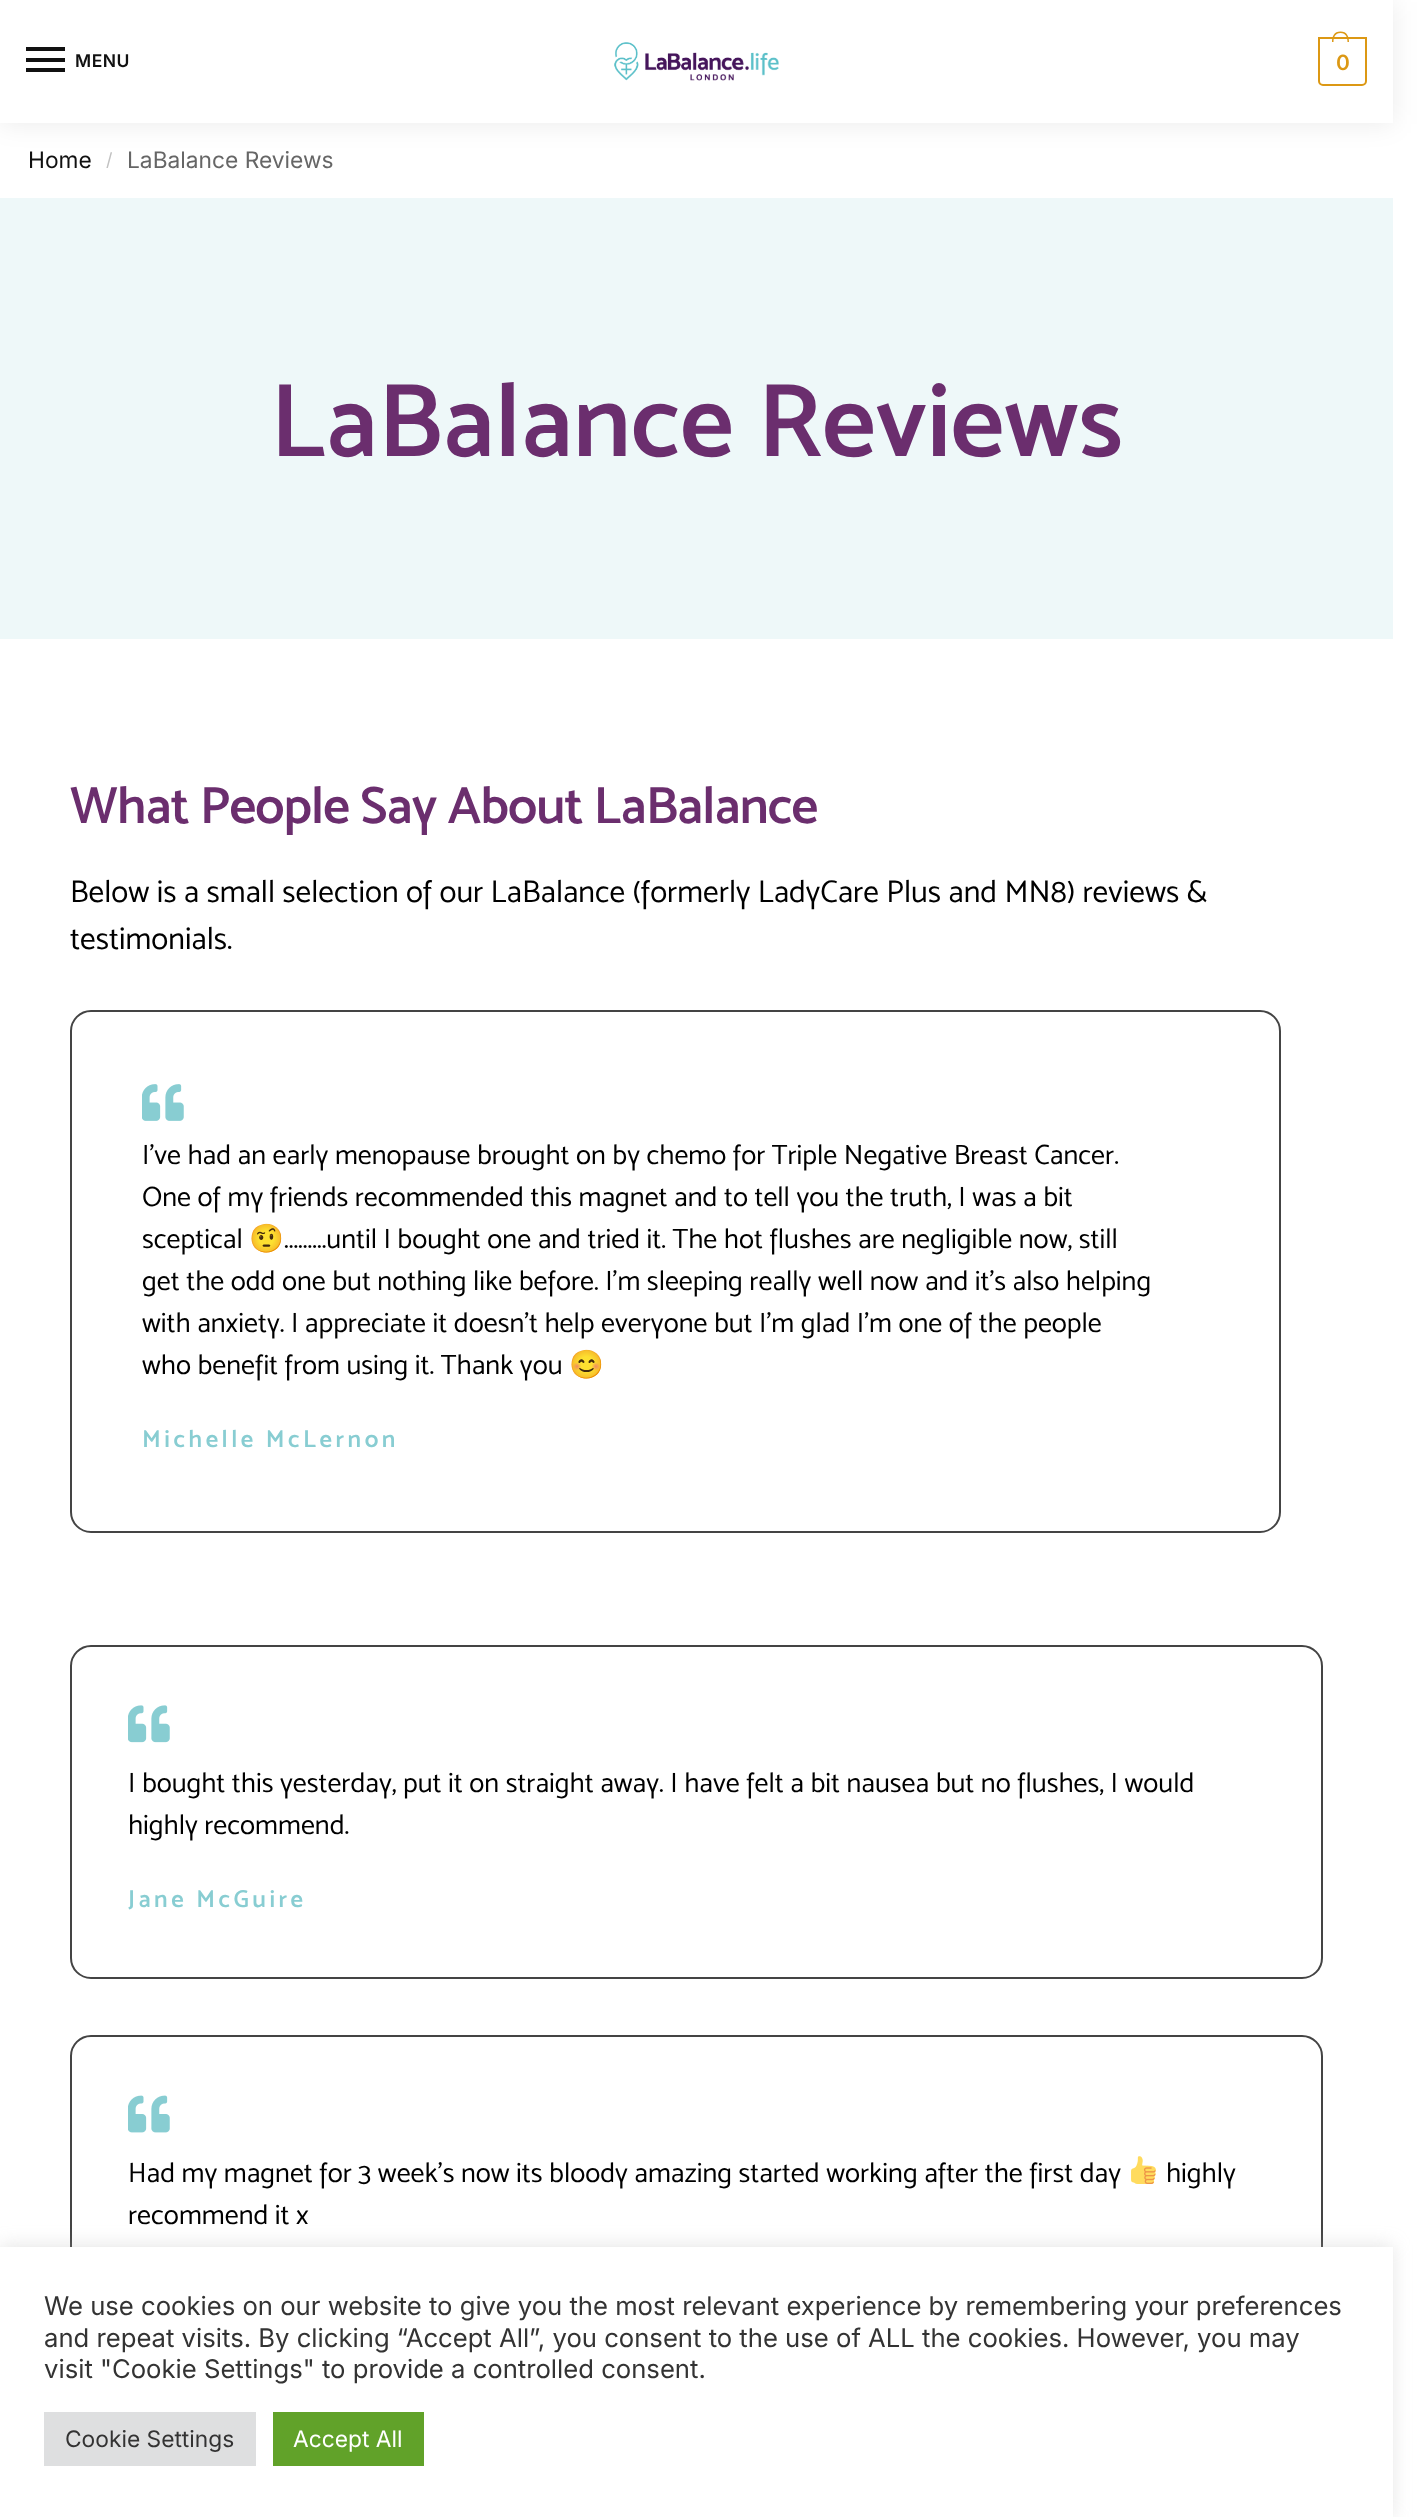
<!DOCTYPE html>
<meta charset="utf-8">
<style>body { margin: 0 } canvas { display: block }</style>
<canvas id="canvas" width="1419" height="2517"></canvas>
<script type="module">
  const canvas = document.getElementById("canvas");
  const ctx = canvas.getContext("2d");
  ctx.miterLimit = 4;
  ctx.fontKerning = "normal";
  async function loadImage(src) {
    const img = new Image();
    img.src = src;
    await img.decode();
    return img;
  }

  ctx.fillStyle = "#ffffff";
  ctx.fillRect(0, 0, 1419, 2517);
  ctx.save();
  ctx.beginPath();
  ctx.moveTo(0, 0);
  ctx.lineTo(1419, 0);
  ctx.lineTo(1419, 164);
  ctx.lineTo(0, 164);
  ctx.closePath();
  ctx.moveTo(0, 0);
  ctx.lineTo(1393, 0);
  ctx.lineTo(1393, 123);
  ctx.lineTo(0, 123);
  ctx.closePath();
  ctx.clip("evenodd");
  ctx.fillStyle = "rgba(0, 0, 0, 0.08)";
  ctx.filter = "blur(13px)";
  ctx.beginPath();
  ctx.rect(0, 2, 1393, 122);
  ctx.fill();
  ctx.filter = "none";
  ctx.restore();
  ctx.fillStyle = "#111111";
  ctx.fillRect(26, 47, 39, 4);
  ctx.fillRect(26, 58, 39, 4);
  ctx.letterSpacing = "0.5px";
  ctx.font = "600 17.5px Inter";
  ctx.fillText("MENU", 75, 67);
  ctx.fillRect(26, 68, 39, 4);
  ctx.drawImage(await loadImage("img1.png"), 614, 42, 165, 39);
  ctx.beginPath();
  ctx.roundRect(1319, 38, 47, 47, [0, 0, 4, 4]);
  ctx.strokeStyle = "#dc9814";
  ctx.lineWidth = 2;
  ctx.stroke();
  ctx.fillStyle = "#dc9814";
  ctx.beginPath();
  ctx.moveTo(1340.5, 31.5);
  ctx.bezierCurveTo(1347, 31.5, 1349, 36.5, 1349, 42);
  ctx.lineTo(1332, 42);
  ctx.bezierCurveTo(1332, 36.5, 1334, 31.5, 1340.5, 31.5);
  ctx.closePath();
  ctx.moveTo(1340.5, 33);
  ctx.bezierCurveTo(1346, 33, 1347.5, 37.5, 1347.5, 42);
  ctx.lineTo(1333.5, 42);
  ctx.bezierCurveTo(1333.5, 37.5, 1335, 33, 1340.5, 33);
  ctx.closePath();
  ctx.fill("evenodd");
  ctx.letterSpacing = "-1px";
  ctx.font = "600 21px Inter";
  ctx.fillText("0", 1336, 70);
  ctx.letterSpacing = "0px";
  ctx.font = "22.75px Inter";
  ctx.fillStyle = "#111111";
  ctx.fillText("Home", 28, 168);
  ctx.font = "18px Inter";
  ctx.fillStyle = "#c2c2c2";
  ctx.fillText("/", 106, 166);
  ctx.font = "22.75px Inter";
  ctx.fillStyle = "#666666";
  ctx.fillText("LaBalance Reviews", 127, 168);
  ctx.fillStyle = "#eef8f9";
  ctx.fillRect(0, 198, 1393, 441);
  ctx.font = "600 105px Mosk";
  ctx.fillStyle = "#6b2e6e";
  ctx.fillText("LaBalance Reviews", 270, 456);
  ctx.letterSpacing = "-0.9px";
  ctx.font = "600 52.5px Mosk";
  ctx.fillText("What People Say About LaBalance", 70, 823);
  ctx.letterSpacing = "0px";
  ctx.font = "31.5px 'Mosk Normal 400'";
  ctx.fillStyle = "#000000";
  ctx.fillText("Below is a small selection of our LaBalance (formerly LadyCare Plus and MN8) reviews &", 70, 902);
  ctx.fillText("testimonials.", 70, 949);
  ctx.beginPath();
  ctx.roundRect(71, 1011, 1209, 521, 20);
  ctx.strokeStyle = "#444444";
  ctx.stroke();
  ctx.drawImage(await loadImage("img2.png"), 142, 1084, 42, 37);
  ctx.font = "28px 'Mosk Normal 400'";
  ctx.fillText("I’ve had an early menopause brought on by chemo for Triple Negative Breast Cancer.", 142, 1164);
  ctx.fillText("One of my friends recommended this magnet and to tell you the truth, I was a bit", 142, 1206);
  ctx.fillText("sceptical", 142, 1248);
  ctx.font = "28px Noto Color Emoji";
  ctx.fillText("🤨", 249, 1248);
  ctx.font = "28px 'Mosk Normal 400'";
  ctx.fillText(".........until I bought one and tried it. The hot flushes are negligible now, still", 284, 1248);
  ctx.fillText("get the odd one but nothing like before. I’m sleeping really well now and it’s also helping", 142, 1290);
  ctx.fillText("with anxiety. I appreciate it doesn’t help everyone but I’m glad I’m one of the people", 142, 1332);
  ctx.fillText("who benefit from using it. Thank you", 142, 1374);
  ctx.font = "28px Noto Color Emoji";
  ctx.fillText("😊", 569, 1374);
  ctx.letterSpacing = "3.5px";
  ctx.font = "600 24.5px Mosk";
  ctx.fillStyle = "#88cdd2";
  ctx.fillText("Michelle McLernon", 142, 1447);
  ctx.beginPath();
  ctx.roundRect(71, 1646, 1251, 332, 20);
  ctx.stroke();
  ctx.drawImage(await loadImage("img3.png"), 128, 1705, 42, 38);
  ctx.letterSpacing = "0px";
  ctx.font = "28px 'Mosk Normal 400'";
  ctx.fillStyle = "#000000";
  ctx.fillText("I bought this yesterday, put it on straight away. I have felt a bit nausea but no flushes, I would", 128, 1792);
  ctx.fillText("highly recommend.", 128, 1834);
  ctx.letterSpacing = "3.5px";
  ctx.font = "600 24.5px Mosk";
  ctx.fillStyle = "#88cdd2";
  ctx.fillText("Jane McGuire", 128, 1907);
  ctx.beginPath();
  ctx.roundRect(71, 2036, 1251, 333, 20);
  ctx.stroke();
  ctx.drawImage(await loadImage("img4.png"), 128, 2095, 42, 38);
  ctx.letterSpacing = "0px";
  ctx.font = "28px 'Mosk Normal 400'";
  ctx.fillStyle = "#000000";
  ctx.fillText("Had my magnet for 3 week's now its bloody amazing started working after the first day", 128, 2182);
  ctx.drawImage(await loadImage("img5.png"), 1131, 2156, 25, 28);
  ctx.fillText("highly", 1166, 2182);
  ctx.fillText("recommend it x", 128, 2224);
  ctx.fillStyle = "rgba(172, 171, 171, 0.3)";
  ctx.filter = "blur(9px)";
  ctx.beginPath();
  ctx.rect(0, 2245, 1393, 272);
  ctx.fill();
  ctx.filter = "none";
  ctx.fillStyle = "#ffffff";
  ctx.fillRect(0, 2247, 1393, 270);
  ctx.font = "25.67px Inter";
  ctx.fillStyle = "#333333";
  ctx.fillText("We use cookies on our website to give you the most relevant experience by remembering your preferences", 44, 2315);
  ctx.fillText("and repeat visits. By clicking “Accept All”, you consent to the use of ALL the cookies. However, you may", 44, 2347);
  ctx.fillText("visit \"Cookie Settings\" to provide a controlled consent.", 44, 2378);
  ctx.fillStyle = "#dedfe0";
  ctx.fillRect(44, 2412, 212, 54);
  ctx.font = "22.75px Inter";
  ctx.fillStyle = "#333333";
  ctx.fillText("Cookie Settings", 65, 2447);
  ctx.fillStyle = "#61a229";
  ctx.fillRect(273, 2412, 151, 54);
  ctx.fillStyle = "#ffffff";
  ctx.fillText("Accept All", 293, 2447);
</script>
